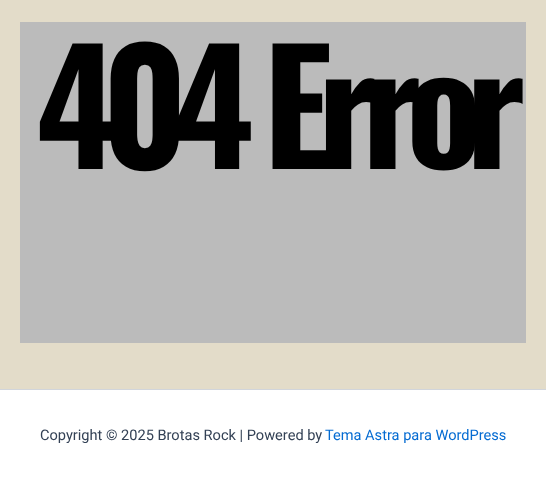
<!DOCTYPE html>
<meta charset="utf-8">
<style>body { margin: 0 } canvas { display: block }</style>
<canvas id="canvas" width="546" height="490"></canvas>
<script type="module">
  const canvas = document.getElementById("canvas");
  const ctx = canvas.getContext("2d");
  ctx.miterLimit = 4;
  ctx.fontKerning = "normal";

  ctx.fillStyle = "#e3dcc9";
  ctx.fillRect(0, 0, 546, 490);
  ctx.fillStyle = "#bbbbbb";
  ctx.fillRect(20, 22, 506, 321);
  ctx.letterSpacing = "-15px";
  ctx.font = "bold 155px Oswald";
  ctx.fillStyle = "#000000";
  ctx.fillText("404 Error", 36, 169);
  ctx.fillStyle = "#ffffff";
  ctx.fillRect(0, 390, 546, 100);
  ctx.fillStyle = "#d1d5db";
  ctx.fillRect(0, 389, 546, 1);
  ctx.letterSpacing = "0px";
  ctx.font = "14.6px Roboto";
  ctx.fillStyle = "#334155";
  ctx.fillText("Copyright © 2025 Brotas Rock | Powered by", 40, 440);
  ctx.fillStyle = "#046bd2";
  ctx.fillText("Tema Astra para WordPress", 325, 440);
</script>
